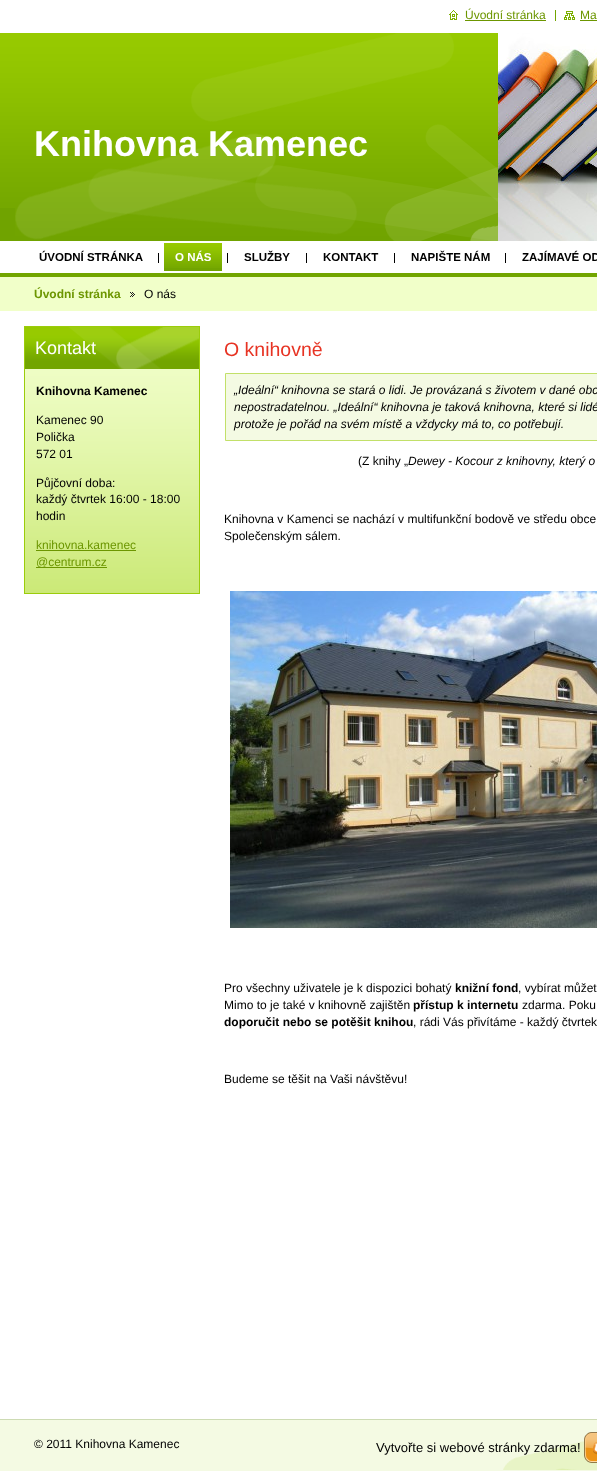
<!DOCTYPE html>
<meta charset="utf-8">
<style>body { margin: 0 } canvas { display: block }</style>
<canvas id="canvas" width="597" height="1471"></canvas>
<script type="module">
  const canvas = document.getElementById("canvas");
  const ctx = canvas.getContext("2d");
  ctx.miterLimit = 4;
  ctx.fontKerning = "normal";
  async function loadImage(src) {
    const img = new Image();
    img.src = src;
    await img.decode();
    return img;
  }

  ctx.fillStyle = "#f4fae3";
  ctx.fillRect(0, 0, 597, 1471);
  ctx.fillStyle = "#ffffff";
  ctx.fillRect(0, 0, 597, 1419);
  ctx.drawImage(await loadImage("img1.png"), 449, 10, 9, 10);
  ctx.font = "12px Liberation Sans";
  ctx.fillStyle = "#6c9600";
  ctx.fillText("Úvodní stránka", 465, 19);
  ctx.fillRect(465, 20, 81, 1);
  ctx.drawImage(await loadImage("img2.png"), 564, 11, 11, 9);
  ctx.fillText("Ma", 580, 19);
  ctx.fillStyle = "#72a500";
  ctx.fillRect(555, 10, 1, 11);
  ctx.fillStyle = "#6c9600";
  ctx.fillRect(580, 20, 17, 1);
  ctx.fillStyle = "#70a300";
  ctx.fillRect(0, 208, 15, 33);
  ctx.drawImage(await loadImage("img3.png"), 0, 33, 15, 175);
  ctx.drawImage(await loadImage("img4.png"), 15, 33, 483, 208);
  ctx.font = "bold 36px Liberation Sans";
  ctx.fillStyle = "#ffffff";
  ctx.fillText("Knihovna Kamenec", 34, 156);
  ctx.drawImage(await loadImage("img5.png"), 498, 33, 99, 208);
  ctx.font = "bold 11.5px Liberation Sans";
  ctx.fillStyle = "#000000";
  ctx.fillText("ÚVODNÍ STRÁNKA", 39, 261);
  ctx.fillRect(158, 253, 1, 10);
  ctx.fillStyle = "#71a400";
  ctx.fillRect(164, 268, 58, 3);
  ctx.drawImage(await loadImage("img6.png"), 164, 243, 58, 25);
  ctx.fillStyle = "#ffffff";
  ctx.fillText("O NÁS", 175, 261);
  ctx.fillStyle = "#000000";
  ctx.fillRect(227, 253, 1, 10);
  ctx.fillText("SLUŽBY", 244, 261);
  ctx.fillRect(306, 253, 1, 10);
  ctx.fillText("KONTAKT", 323, 261);
  ctx.fillRect(394, 253, 1, 10);
  ctx.fillText("NAPIŠTE NÁM", 411, 261);
  ctx.fillRect(505, 253, 1, 10);
  ctx.fillText("ZAJÍMAVÉ OD", 522, 261);
  ctx.fillStyle = "#f1ffc9";
  ctx.fillRect(0, 277, 597, 34);
  ctx.fillStyle = "#72a500";
  ctx.fillRect(0, 273, 597, 4);
  ctx.font = "bold 12px Liberation Sans";
  ctx.fillStyle = "#6c9600";
  ctx.fillText("Úvodní stránka", 34, 298);
  ctx.drawImage(await loadImage("img7.png"), 130, 292, 5, 5);
  ctx.font = "12px Liberation Sans";
  ctx.fillStyle = "#000000";
  ctx.fillText("O nás", 144, 298);
  ctx.drawImage(await loadImage("img8.png"), 25, 369, 174, 224);
  ctx.strokeStyle = "#9bcc0b";
  ctx.strokeRect(24.5, 326.5, 175, 267);
  ctx.drawImage(await loadImage("img9.png"), 25, 327, 174, 42);
  ctx.font = "18px Liberation Sans";
  ctx.fillStyle = "#ffffff";
  ctx.fillText("Kontakt", 35, 354);
  ctx.font = "bold 12px Liberation Sans";
  ctx.fillStyle = "#000000";
  ctx.fillText("Knihovna Kamenec", 36, 395);
  ctx.font = "12px Liberation Sans";
  ctx.fillText("Kamenec 90", 36, 424);
  ctx.fillText("Polička", 36, 441);
  ctx.fillText("572 01", 36, 458);
  ctx.fillText("Půjčovní doba:", 36, 487);
  ctx.fillText("každý čtvrtek 16:00 - 18:00", 36, 503);
  ctx.fillText("hodin", 36, 520);
  ctx.fillStyle = "#6c9600";
  ctx.fillText("knihovna.kamenec", 36, 549);
  ctx.fillRect(36, 550, 100, 1);
  ctx.fillRect(36, 567, 71, 1);
  ctx.fillText("@centrum.cz", 36, 566);
  ctx.font = "19.5px Liberation Sans";
  ctx.fillStyle = "#e73323";
  ctx.fillText("O knihovně", 224, 356);
  ctx.fillStyle = "#f4fae3";
  ctx.beginPath();
  ctx.rect(225.5, 373.5, 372, 67);
  ctx.fill();
  ctx.strokeStyle = "#c2e069";
  ctx.stroke();
  ctx.font = "italic 12px Liberation Sans";
  ctx.fillStyle = "#000000";
  ctx.fillText("„Ideální“ knihovna se stará o lidi. Je provázaná s životem v dané obc", 234, 394);
  ctx.fillText("nepostradatelnou. „Ideální“ knihovna je taková knihovna, které si lidé", 234, 411);
  ctx.fillText("protože je pořád na svém místě a vždycky má to, co potřebují.", 234, 428);
  ctx.font = "12px Liberation Sans";
  ctx.fillText("(Z knihy „", 358, 465);
  ctx.font = "italic 12px Liberation Sans";
  ctx.fillText("Dewey - Kocour z knihovny, který o", 408, 465);
  ctx.font = "12px Liberation Sans";
  ctx.fillText("Knihovna v Kamenci se nachází v multifunkční bodově ve středu obce", 224, 523);
  ctx.fillText("Společenským sálem.", 224, 540);
  ctx.drawImage(await loadImage("img10.png"), 230, 591, 367, 337);
  ctx.fillText("Pro všechny uživatele je k dispozici bohatý", 224, 992);
  ctx.font = "bold 12px Liberation Sans";
  ctx.fillText("knižní fond", 455, 992);
  ctx.font = "12px Liberation Sans";
  ctx.fillText(", vybírat můžet", 518, 992);
  ctx.fillText("Mimo to je také v knihovně zajištěn", 224, 1009);
  ctx.font = "bold 12px Liberation Sans";
  ctx.fillText("přístup k internetu", 413, 1009);
  ctx.font = "12px Liberation Sans";
  ctx.fillText("zdarma. Poku", 522, 1009);
  ctx.font = "bold 12px Liberation Sans";
  ctx.fillText("doporučit nebo se potěšit knihou", 224, 1026);
  ctx.font = "12px Liberation Sans";
  ctx.fillText(", rádi Vás přivítáme - každý čtvrtek", 413, 1026);
  ctx.fillText("Budeme se těšit na Vaši návštěvu!", 224, 1083);
  ctx.fillStyle = "#cddbb3";
  ctx.fillRect(0, 1419, 597, 1);
  ctx.drawImage(await loadImage("img11.png"), 503, 1438, 94, 32);
  ctx.fillStyle = "#000000";
  ctx.fillText("© 2011 Knihovna Kamenec", 34, 1448);
  ctx.font = "13px Liberation Sans";
  ctx.fillText("Vytvořte si webové stránky zdarma!", 376, 1452);
  ctx.drawImage(await loadImage("img12.png"), 584, 1432, 13, 31);
</script>
